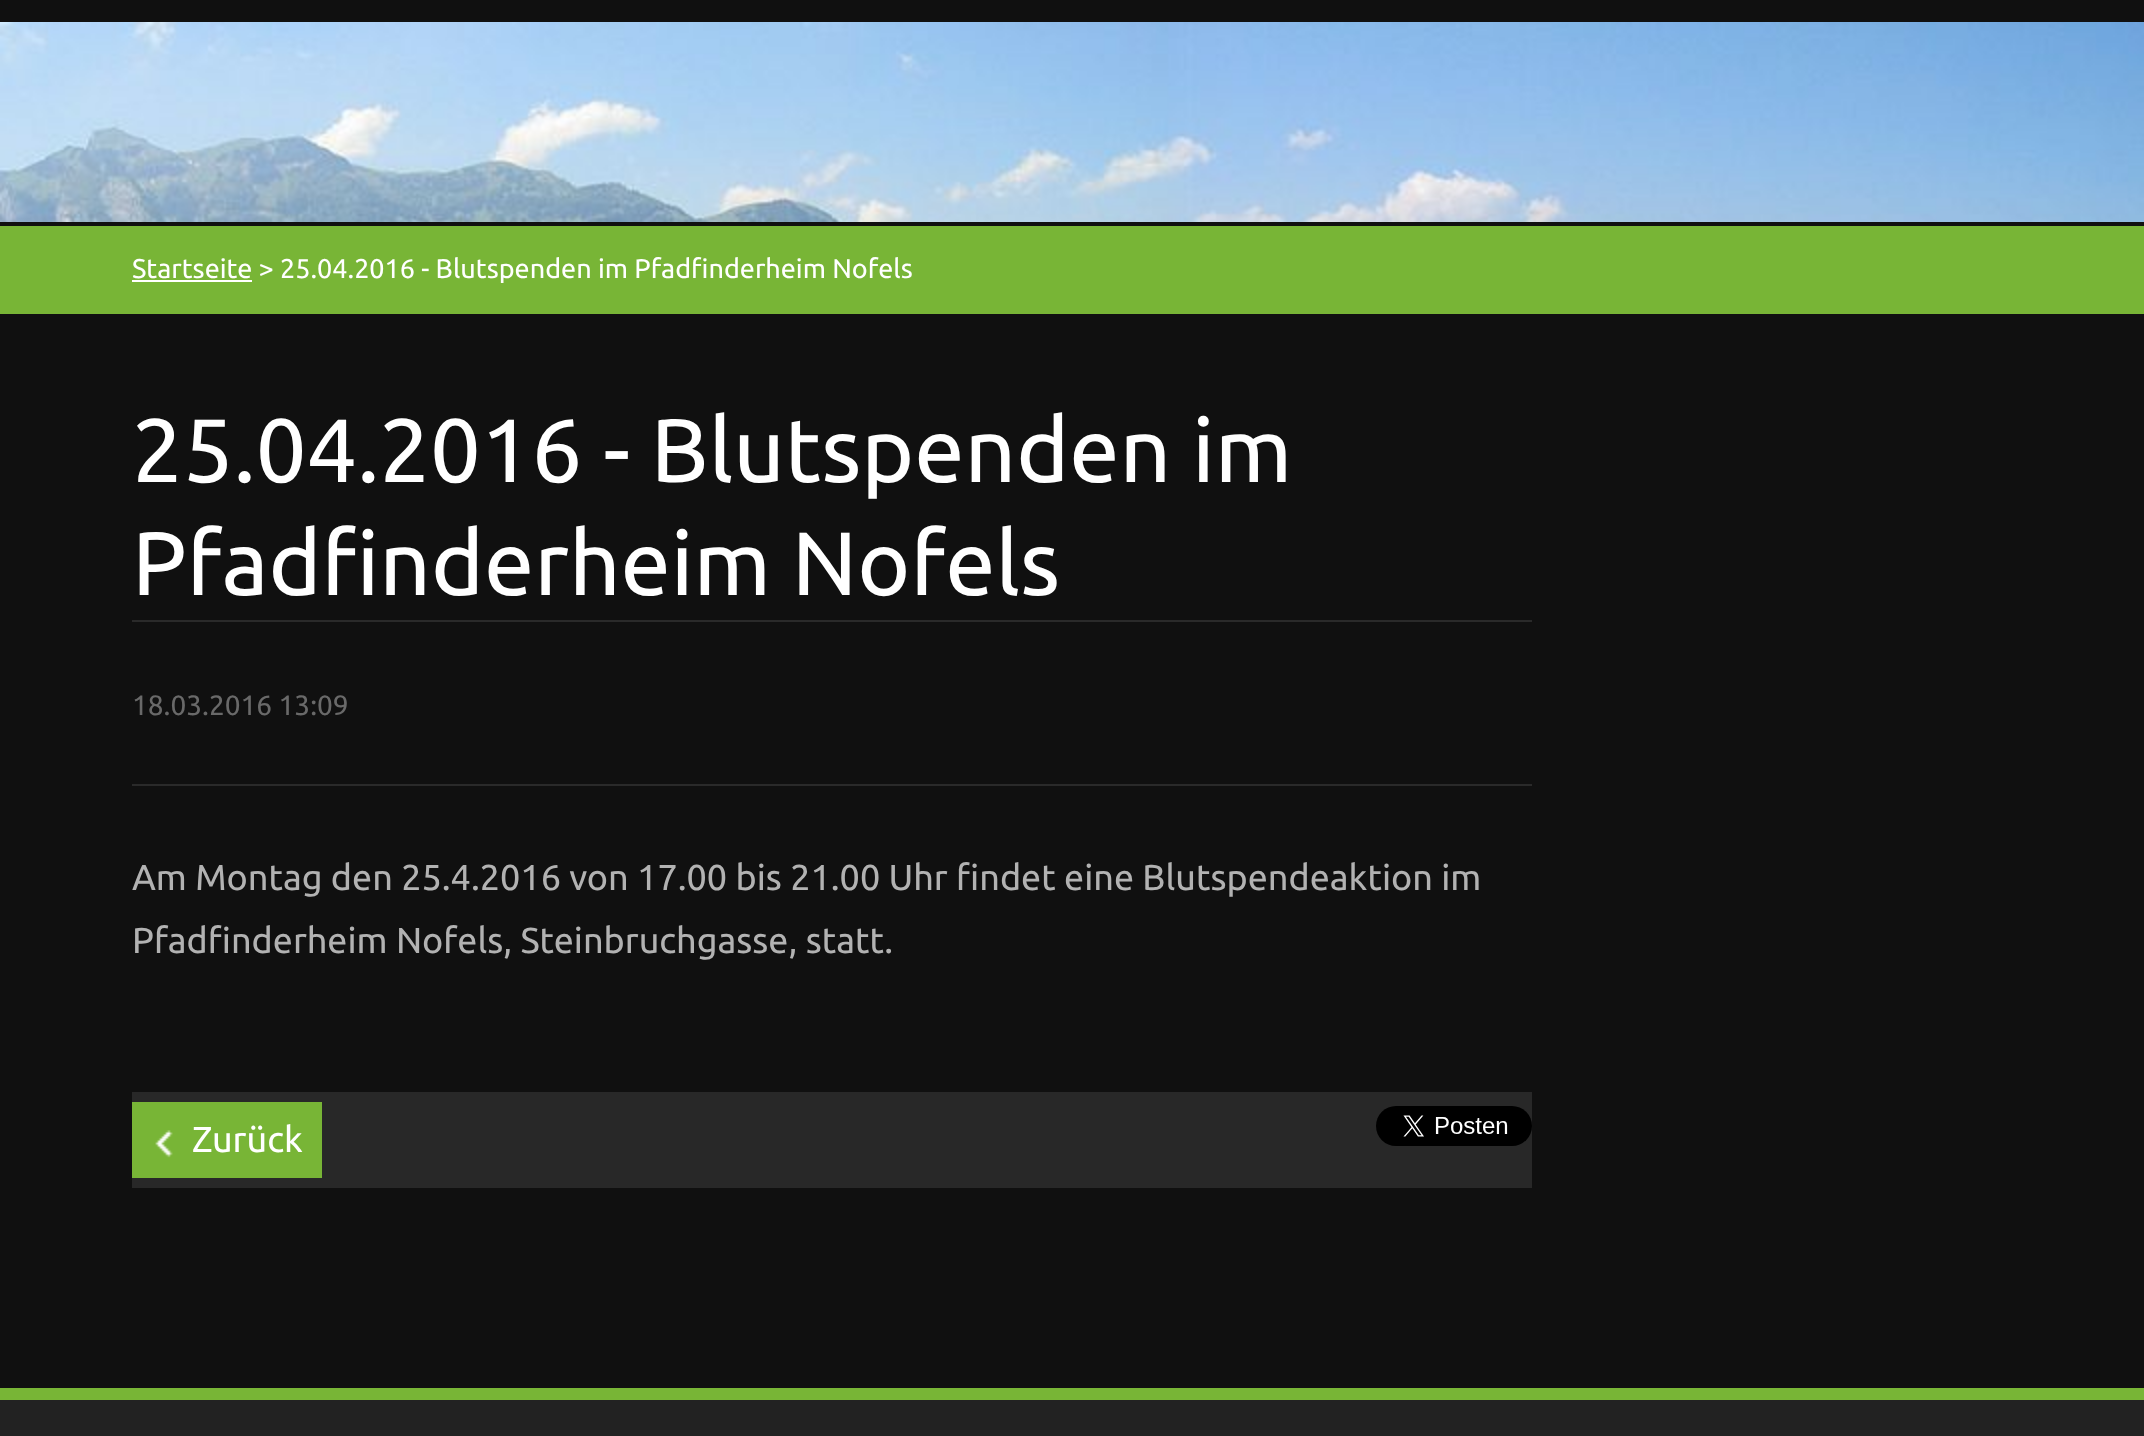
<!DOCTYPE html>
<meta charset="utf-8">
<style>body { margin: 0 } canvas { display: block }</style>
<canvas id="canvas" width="2144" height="1436"></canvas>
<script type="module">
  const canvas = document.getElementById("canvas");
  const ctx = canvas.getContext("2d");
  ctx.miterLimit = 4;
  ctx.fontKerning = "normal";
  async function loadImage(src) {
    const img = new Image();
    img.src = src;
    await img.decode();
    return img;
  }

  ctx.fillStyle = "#101010";
  ctx.fillRect(0, 0, 2144, 1436);
  ctx.drawImage(await loadImage("img1.png"), 0, 22, 2144, 200);
  ctx.fillStyle = "#78b536";
  ctx.fillRect(0, 226, 2144, 88);
  ctx.fillStyle = "#ffffff";
  ctx.fillRect(132, 280, 120, 2);
  ctx.font = "27px Ubuntu";
  ctx.fillText("Startseite > 25.04.2016 - Blutspenden im Pfadfinderheim Nofels", 132, 278);
  ctx.fillStyle = "#2a2a2a";
  ctx.fillRect(132, 620, 1400, 2);
  ctx.font = "90px Ubuntu";
  ctx.fillStyle = "#ffffff";
  ctx.fillText("25.04.2016 - Blutspenden im", 132, 482);
  ctx.fillText("Pfadfinderheim Nofels", 132, 595);
  ctx.font = "28px Ubuntu";
  ctx.fillStyle = "#696969";
  ctx.fillText("18.03.2016 13:09", 132, 715);
  ctx.fillStyle = "#2a2a2a";
  ctx.fillRect(132, 784, 1400, 2);
  ctx.font = "36px Ubuntu";
  ctx.fillStyle = "#b2b2b2";
  ctx.fillText("Am Montag den 25.4.2016 von 17.00 bis 21.00 Uhr findet eine Blutspendeaktion im", 132, 890);
  ctx.fillText("Pfadfinderheim Nofels, Steinbruchgasse, statt.", 132, 953);
  ctx.fillStyle = "#282828";
  ctx.fillRect(132, 1092, 1400, 96);
  ctx.fillStyle = "#78b536";
  ctx.fillRect(132, 1102, 190, 76);
  ctx.drawImage(await loadImage("img2.png"), 155, 1130, 18, 28);
  ctx.fillStyle = "#ffffff";
  ctx.fillText("Zurück", 192, 1152);
  ctx.drawImage(await loadImage("img3.png"), 1376, 1106, 156, 40);
  ctx.fillStyle = "#222222";
  ctx.fillRect(0, 1400, 2144, 36);
  ctx.fillStyle = "#78b536";
  ctx.fillRect(0, 1388, 2144, 12);
</script>
